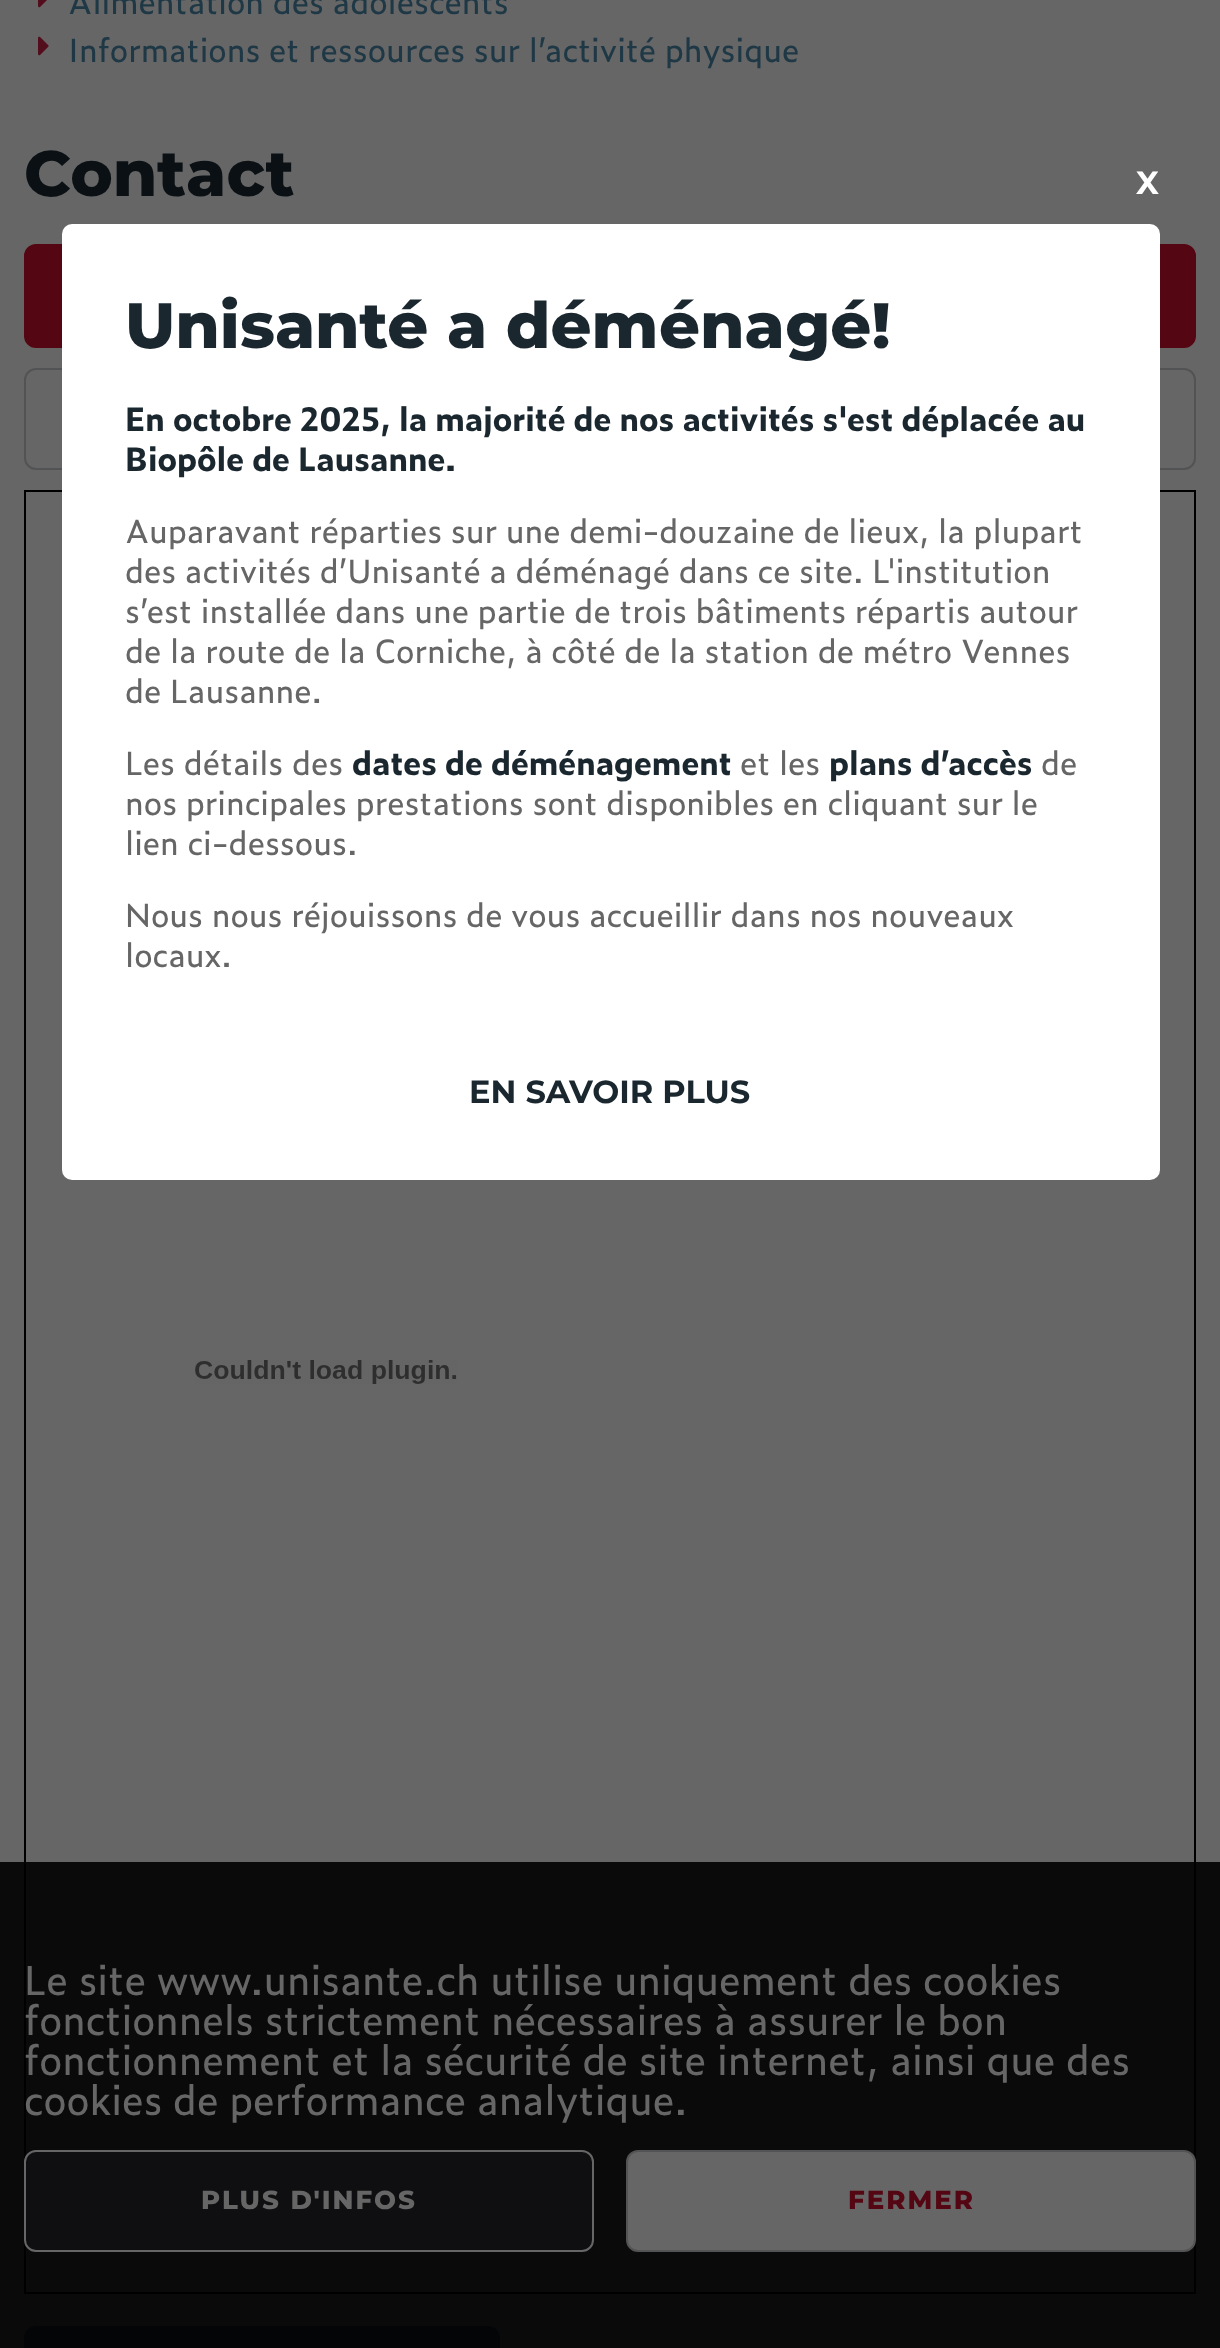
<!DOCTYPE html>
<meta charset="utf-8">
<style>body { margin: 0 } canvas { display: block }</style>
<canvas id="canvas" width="1220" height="2348"></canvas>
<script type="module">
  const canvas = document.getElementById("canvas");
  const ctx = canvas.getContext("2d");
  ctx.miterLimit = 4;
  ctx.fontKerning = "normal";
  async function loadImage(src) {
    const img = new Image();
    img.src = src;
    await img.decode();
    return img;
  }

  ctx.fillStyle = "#666666";
  ctx.fillRect(0, 0, 1220, 2348);
  ctx.drawImage(await loadImage("img1.png"), 38, 0, 9, 8);
  ctx.font = "32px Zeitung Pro";
  ctx.fillStyle = "#1f3846";
  ctx.fillText("Alimentation des adolescents", 68, 14);
  ctx.drawImage(await loadImage("img2.png"), 38, 36, 11, 20);
  ctx.fillText("Informations et ressources sur l’activité physique", 68, 62);
  ctx.font = "800 64px Montserrat";
  ctx.fillStyle = "#0a1013";
  ctx.fillText("Contact", 24, 196);
  ctx.fillStyle = "#540612";
  ctx.beginPath();
  ctx.roundRect(25, 245, 1170, 102, 11);
  ctx.fill();
  ctx.strokeStyle = "#540612";
  ctx.lineWidth = 2;
  ctx.stroke();
  ctx.beginPath();
  ctx.roundRect(25, 369, 1170, 100, 11);
  ctx.strokeStyle = "#525354";
  ctx.stroke();
  ctx.strokeStyle = "#000000";
  ctx.strokeRect(25, 491, 1170, 1802);
  ctx.drawImage(await loadImage("img3.png"), 195, 1360, 262, 24);
  ctx.fillStyle = "#1f3846";
  ctx.beginPath();
  ctx.roundRect(25, 2327, 474, 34, 11);
  ctx.fill();
  ctx.strokeStyle = "#1f3846";
  ctx.stroke();
  ctx.font = "bold 32px Montserrat";
  ctx.fillStyle = "#ffffff";
  ctx.fillText("X", 1136, 194);
  ctx.beginPath();
  ctx.roundRect(62, 224, 1098, 956, 10);
  ctx.fill();
  ctx.font = "800 64px Montserrat";
  ctx.fillStyle = "#1a272f";
  ctx.fillText("Unisanté a déménagé!", 125, 348);
  ctx.font = "bold 32px Zeitung Pro";
  ctx.fillText("En octobre 2025, la majorité de nos activités s'est déplacée au", 125, 431);
  ctx.fillText("Biopôle de Lausanne.", 125, 471);
  ctx.font = "32px Zeitung Pro";
  ctx.fillStyle = "#666666";
  ctx.fillText("Auparavant réparties sur une demi-douzaine de lieux, la plupart", 125, 543);
  ctx.fillText("des activités d’Unisanté a déménagé dans ce site. L'institution", 125, 583);
  ctx.fillText("s’est installée dans une partie de trois bâtiments répartis autour", 125, 623);
  ctx.fillText("de la route de la Corniche, à côté de la station de métro Vennes", 125, 663);
  ctx.fillText("de Lausanne.", 125, 703);
  ctx.fillText("Les détails des", 125, 775);
  ctx.font = "bold 32px Zeitung Pro";
  ctx.fillStyle = "#1a272f";
  ctx.fillText("dates de déménagement", 352, 775);
  ctx.font = "32px Zeitung Pro";
  ctx.fillStyle = "#666666";
  ctx.fillText("et les", 740, 775);
  ctx.font = "bold 32px Zeitung Pro";
  ctx.fillStyle = "#1a272f";
  ctx.fillText("plans d’accès", 829, 775);
  ctx.font = "32px Zeitung Pro";
  ctx.fillStyle = "#666666";
  ctx.fillText("de", 1041, 775);
  ctx.fillText("nos principales prestations sont disponibles en cliquant sur le", 125, 815);
  ctx.fillText("lien ci-dessous.", 125, 855);
  ctx.fillText("Nous nous réjouissons de vous accueillir dans nos nouveaux", 125, 927);
  ctx.fillText("locaux.", 125, 967);
  ctx.font = "bold 32px Montserrat";
  ctx.fillStyle = "#1a272f";
  ctx.fillText("EN SAVOIR PLUS", 469, 1103);
  ctx.fillStyle = "rgba(0, 0, 0, 0.9)";
  ctx.fillRect(0, 1862, 1220, 486);
  ctx.font = "40px Zeitung Pro";
  ctx.fillStyle = "#666666";
  ctx.fillText("Le site www.unisante.ch utilise uniquement des cookies", 24, 1995);
  ctx.fillText("fonctionnels strictement nécessaires à assurer le bon", 24, 2035);
  ctx.fillText("fonctionnement et la sécurité de site internet, ainsi que des", 24, 2075);
  ctx.fillText("cookies de performance analytique.", 24, 2115);
  ctx.fillStyle = "#0f0e10";
  ctx.beginPath();
  ctx.roundRect(25, 2151, 568, 100, 11);
  ctx.fill();
  ctx.strokeStyle = "#666666";
  ctx.stroke();
  ctx.letterSpacing = "2px";
  ctx.font = "800 26px Montserrat";
  ctx.fillStyle = "#666666";
  ctx.fillText("PLUS D'INFOS", 201, 2209);
  ctx.beginPath();
  ctx.roundRect(627, 2151, 568, 100, 11);
  ctx.fill();
  ctx.strokeStyle = "#525354";
  ctx.stroke();
  ctx.fillStyle = "#540612";
  ctx.fillText("FERMER", 848, 2209);
</script>
